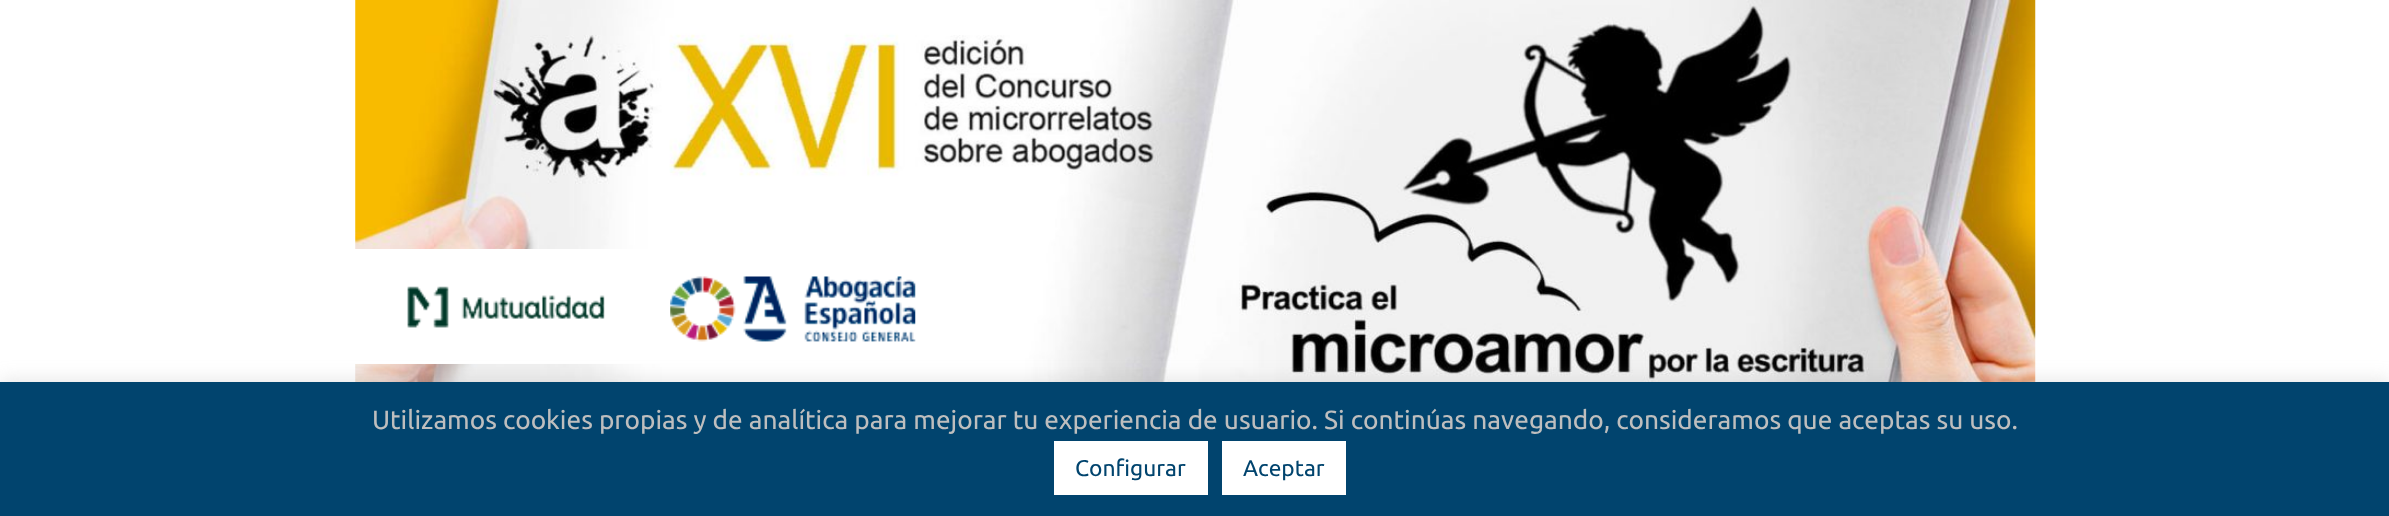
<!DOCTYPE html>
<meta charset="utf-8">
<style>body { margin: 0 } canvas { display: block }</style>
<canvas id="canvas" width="2389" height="516"></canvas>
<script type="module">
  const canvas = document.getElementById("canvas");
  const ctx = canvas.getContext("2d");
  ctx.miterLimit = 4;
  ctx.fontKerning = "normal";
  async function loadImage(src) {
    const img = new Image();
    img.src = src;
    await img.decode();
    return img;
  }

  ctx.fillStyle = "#ffffff";
  ctx.fillRect(0, 0, 2389, 516);
  ctx.drawImage(await loadImage("img1.png"), 355, 0, 1681, 382);
  ctx.beginPath();
  ctx.roundRect(355, 249, 595, 115, [0, 28, 28, 0]);
  ctx.fill();
  ctx.drawImage(await loadImage("img2.png"), 407, 286, 198, 42);
  ctx.drawImage(await loadImage("img3.png"), 670, 276, 246, 66);
  ctx.fillStyle = "rgba(172, 171, 171, 0.3)";
  ctx.filter = "blur(9px)";
  ctx.beginPath();
  ctx.rect(0, 380, 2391, 135);
  ctx.fill();
  ctx.filter = "none";
  ctx.fillStyle = "#01446e";
  ctx.fillRect(0, 382, 2389, 134);
  ctx.font = "26.25px Ubuntu";
  ctx.fillStyle = "#bebebe";
  ctx.fillText("Utilizamos cookies propias y de analítica para mejorar tu experiencia de usuario. Si continúas navegando, consideramos que aceptas su uso.", 372, 429);
  ctx.fillStyle = "#ffffff";
  ctx.fillRect(1054, 441, 154, 54);
  ctx.font = "22.75px Ubuntu";
  ctx.fillStyle = "#01446e";
  ctx.fillText("Configurar", 1075, 476);
  ctx.fillStyle = "#ffffff";
  ctx.fillRect(1222, 441, 124, 54);
  ctx.fillStyle = "#01446e";
  ctx.fillText("Aceptar", 1243, 476);
</script>
